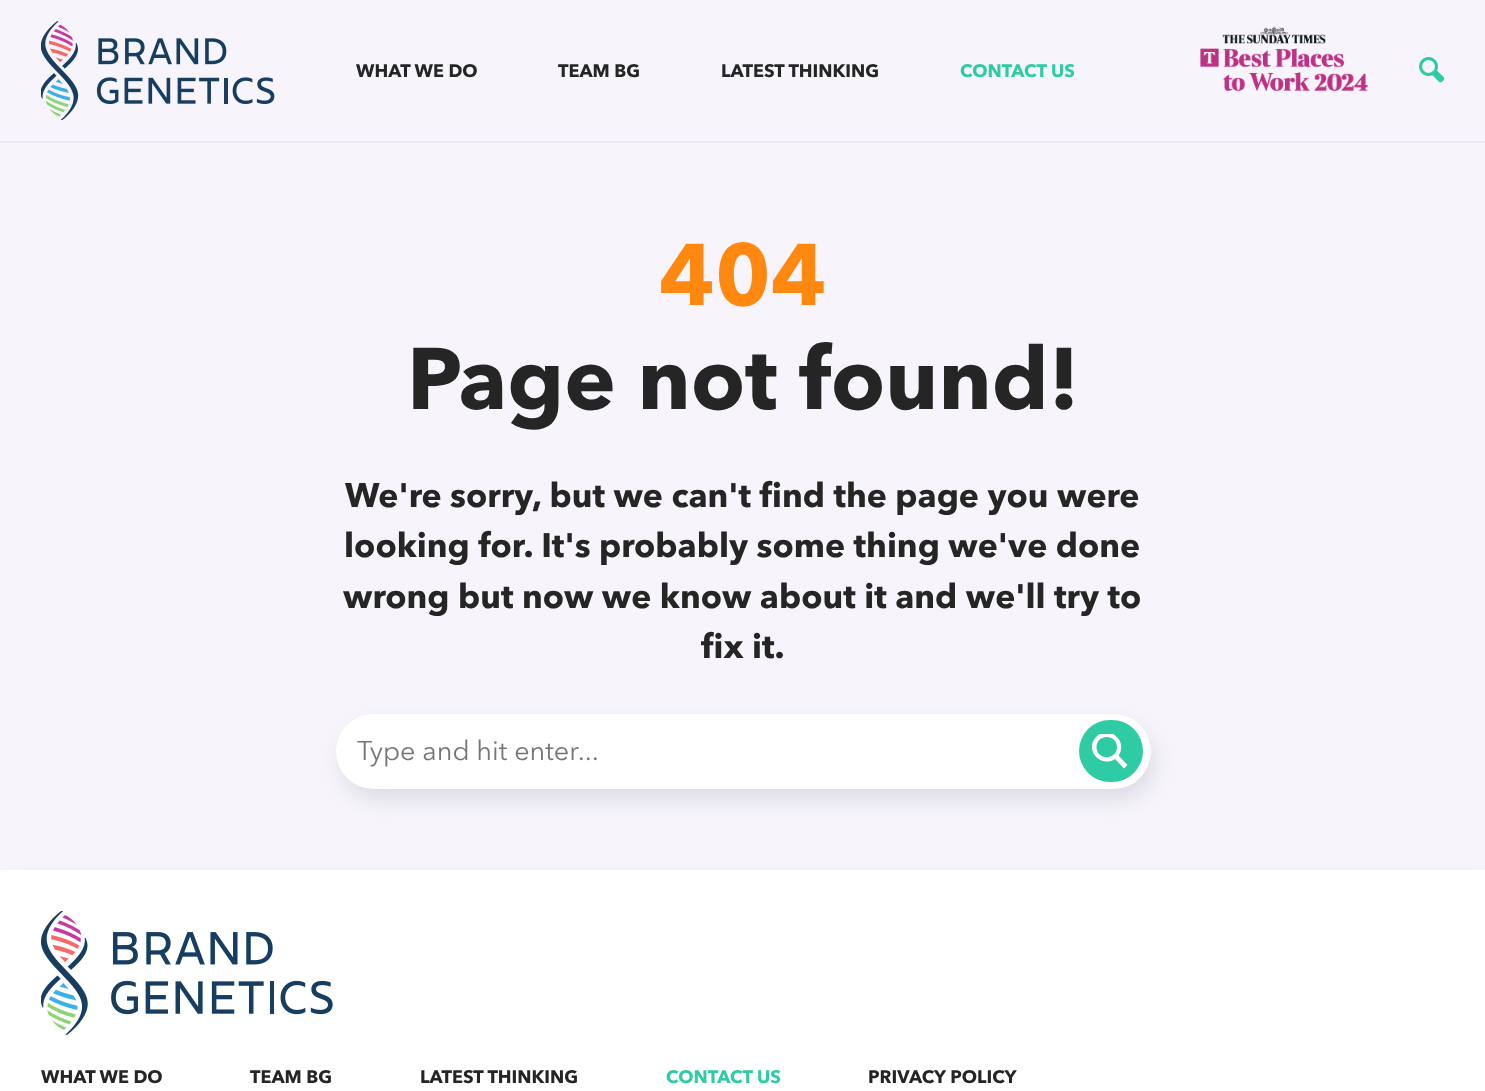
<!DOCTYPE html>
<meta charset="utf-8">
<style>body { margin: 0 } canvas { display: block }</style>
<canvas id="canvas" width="1485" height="1091"></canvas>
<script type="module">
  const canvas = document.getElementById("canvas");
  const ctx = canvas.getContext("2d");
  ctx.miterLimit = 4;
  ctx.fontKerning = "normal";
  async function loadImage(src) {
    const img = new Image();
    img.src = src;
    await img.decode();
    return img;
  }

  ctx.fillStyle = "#f7f5fb";
  ctx.fillRect(0, 0, 1485, 1091);
  ctx.fillStyle = "#eeeaf7";
  ctx.fillRect(0, 141, 1485, 2);
  ctx.drawImage(await loadImage("img1.png"), 41, 21, 234, 99);
  ctx.font = "bold 18px Avenir Next";
  ctx.fillStyle = "#252525";
  ctx.fillText("WHAT WE DO", 356, 77);
  ctx.fillText("TEAM BG", 558, 77);
  ctx.fillText("LATEST THINKING", 721, 77);
  ctx.fillStyle = "#2fcba4";
  ctx.fillText("CONTACT US", 960, 77);
  ctx.drawImage(await loadImage("img2.png"), 1200, 26, 168, 66);
  ctx.drawImage(await loadImage("img3.png"), 1419, 57, 26, 26);
  ctx.font = "bold 86.5px Avenir Next";
  ctx.fillStyle = "#ff8811";
  ctx.fillText("404", 659, 305);
  ctx.fillStyle = "#252525";
  ctx.fillText("Page not found!", 407, 409);
  ctx.font = "bold 33.75px Avenir Next";
  ctx.fillText("We're sorry, but we can't find the page you were", 345, 507);
  ctx.fillText("looking for. It's probably some thing we've done", 344, 557);
  ctx.fillText("wrong but now we know about it and we'll try to", 343, 608);
  ctx.fillText("fix it.", 701, 658);
  ctx.fillStyle = "rgba(181, 175, 195, 0.36)";
  ctx.filter = "blur(10px)";
  ctx.beginPath();
  ctx.roundRect(341, 725, 814, 75, 37.5);
  ctx.fill();
  ctx.filter = "none";
  ctx.fillStyle = "#ffffff";
  ctx.beginPath();
  ctx.roundRect(336, 714, 815, 75, 37.5);
  ctx.fill();
  ctx.font = "27px Avenir Next";
  ctx.fillStyle = "#757575";
  ctx.fillText("Type and hit enter...", 357, 760);
  ctx.fillStyle = "#2fcba4";
  ctx.beginPath();
  ctx.roundRect(1079, 720, 64, 62, 31);
  ctx.fill();
  ctx.save();
  ctx.beginPath();
  ctx.rect(1092, 734, 36, 36);
  ctx.clip();
  ctx.fillStyle = "#ffffff";
  ctx.beginPath();
  ctx.moveTo(1127.5, 765);
  ctx.lineTo(1118.5, 755.5);
  ctx.bezierCurveTo(1128.5, 741.5, 1109, 724, 1096.5, 736.5);
  ctx.bezierCurveTo(1083.5, 749.5, 1100.5, 768.5, 1115, 759);
  ctx.lineTo(1124, 768.5);
  ctx.closePath();
  ctx.moveTo(1096.5, 747);
  ctx.bezierCurveTo(1096.5, 733.5, 1117, 733.5, 1117, 747);
  ctx.bezierCurveTo(1117, 760.5, 1096.5, 760.5, 1096.5, 747);
  ctx.closePath();
  ctx.fill();
  ctx.restore();
  ctx.fillStyle = "rgba(181, 175, 195, 0.36)";
  ctx.filter = "blur(10px)";
  ctx.beginPath();
  ctx.rect(5, 881, 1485, 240);
  ctx.fill();
  ctx.filter = "none";
  ctx.fillStyle = "#ffffff";
  ctx.fillRect(0, 870, 1485, 221);
  ctx.drawImage(await loadImage("img4.png"), 41, 911, 292, 124);
  ctx.font = "bold 18px Avenir Next";
  ctx.fillStyle = "#252525";
  ctx.fillText("WHAT WE DO", 41, 1083);
  ctx.fillText("TEAM BG", 250, 1083);
  ctx.fillText("LATEST THINKING", 420, 1083);
  ctx.fillStyle = "#2fcba4";
  ctx.fillText("CONTACT US", 666, 1083);
  ctx.fillStyle = "#252525";
  ctx.fillText("PRIVACY POLICY", 868, 1083);
</script>
